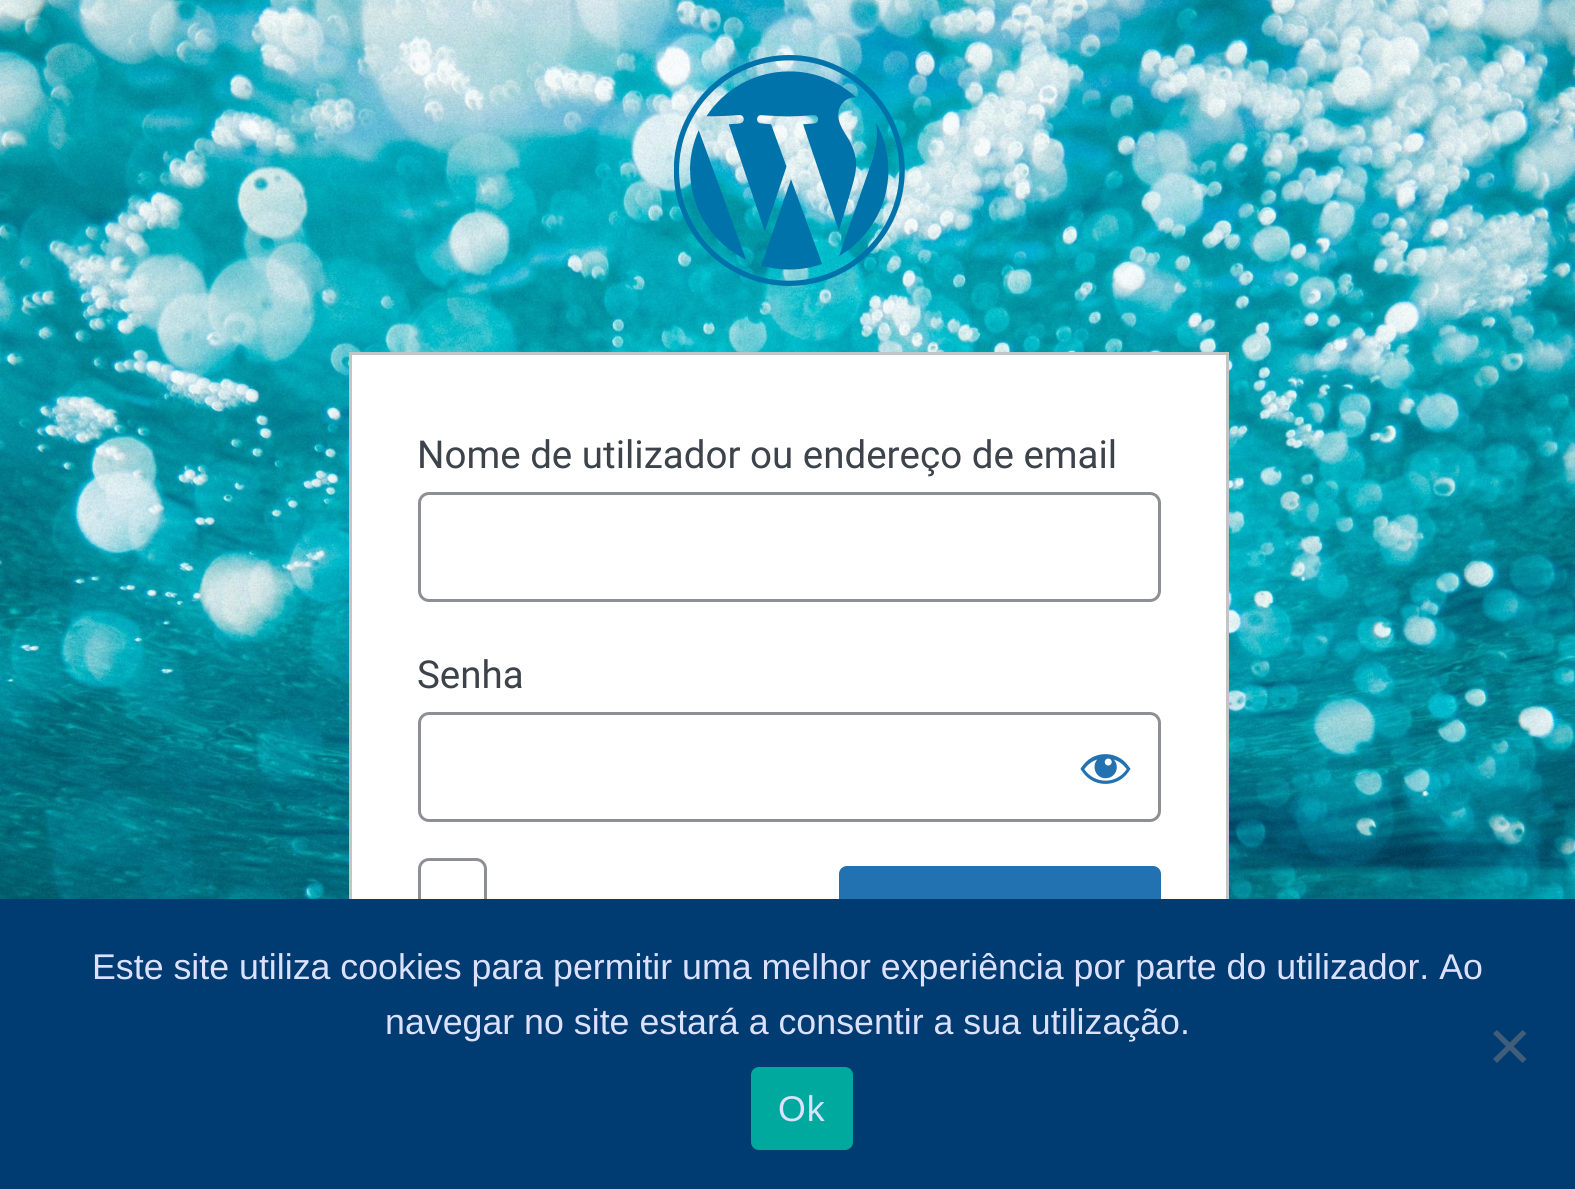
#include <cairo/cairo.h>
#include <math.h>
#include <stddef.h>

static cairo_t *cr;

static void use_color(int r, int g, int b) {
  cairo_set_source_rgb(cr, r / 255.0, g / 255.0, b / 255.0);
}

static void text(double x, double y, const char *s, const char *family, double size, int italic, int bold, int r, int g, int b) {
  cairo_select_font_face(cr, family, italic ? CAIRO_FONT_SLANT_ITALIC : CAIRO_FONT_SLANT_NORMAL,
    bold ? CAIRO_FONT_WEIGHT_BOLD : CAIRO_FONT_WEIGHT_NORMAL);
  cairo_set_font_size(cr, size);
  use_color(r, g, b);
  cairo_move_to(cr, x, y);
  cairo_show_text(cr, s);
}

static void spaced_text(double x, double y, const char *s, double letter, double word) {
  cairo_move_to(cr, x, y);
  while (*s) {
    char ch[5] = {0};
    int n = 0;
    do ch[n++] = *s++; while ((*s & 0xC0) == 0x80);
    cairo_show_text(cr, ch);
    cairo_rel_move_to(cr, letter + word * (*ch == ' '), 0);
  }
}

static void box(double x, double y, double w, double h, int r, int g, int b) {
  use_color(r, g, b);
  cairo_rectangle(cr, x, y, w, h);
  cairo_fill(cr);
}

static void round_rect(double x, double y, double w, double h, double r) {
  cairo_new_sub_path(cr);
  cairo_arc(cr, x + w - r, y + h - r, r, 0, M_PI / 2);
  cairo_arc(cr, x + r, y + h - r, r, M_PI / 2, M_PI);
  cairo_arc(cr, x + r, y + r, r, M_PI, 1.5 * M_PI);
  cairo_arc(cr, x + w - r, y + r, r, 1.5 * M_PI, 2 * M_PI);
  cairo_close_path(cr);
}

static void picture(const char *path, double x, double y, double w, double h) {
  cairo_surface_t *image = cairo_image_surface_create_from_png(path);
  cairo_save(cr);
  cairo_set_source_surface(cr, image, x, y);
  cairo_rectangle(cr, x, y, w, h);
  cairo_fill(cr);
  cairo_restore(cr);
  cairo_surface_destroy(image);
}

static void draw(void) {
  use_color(255, 255, 255);
  cairo_paint(cr);
  picture("img_01.png", 0, 0, 1575, 899);
  picture("img_02.png", 674, 55, 231, 231);
  box(352, 355, 874, 544, 255, 255, 255);
  cairo_rectangle(cr, 350.5, 353.5, 877, 707);
  use_color(195, 196, 199);
  cairo_set_line_width(cr, 3);
  cairo_stroke(cr);
  round_rect(419.5, 493.5, 740, 107, 9.5);
  use_color(140, 143, 148);
  cairo_stroke(cr);
  round_rect(419.5, 713.5, 740, 107, 9.5);
  cairo_stroke(cr);
  picture("img_03.png", 1080, 754, 51, 30);
  round_rect(419.5, 859.5, 66, 66, 9.5);
  cairo_stroke(cr);
  use_color(34, 113, 177);
  round_rect(840.5, 867.5, 319, 107, 6.5);
  cairo_fill_preserve(cr);
  cairo_stroke(cr);
  box(0, 899, 1575, 290, 0, 60, 113);
  use_color(64, 94, 121);
  cairo_new_path(cr);
  cairo_move_to(cr, 1522.5, 1030);
  cairo_line_to(cr, 1526.5, 1033.5);
  cairo_line_to(cr, 1497, 1063);
  cairo_line_to(cr, 1493, 1059);
  cairo_close_path(cr);
  cairo_fill(cr);
  cairo_new_path(cr);
  cairo_move_to(cr, 1493, 1033.5);
  cairo_line_to(cr, 1497, 1030);
  cairo_line_to(cr, 1526.5, 1059);
  cairo_line_to(cr, 1522.5, 1063);
  cairo_close_path(cr);
  cairo_fill(cr);
  use_color(0, 169, 157);
  round_rect(751, 1067, 102, 83, 8);
  cairo_fill(cr);
  text(417, 468, "Nome de utilizador ou endereço de email", "Roboto", 38.5, 0, 0, 60, 67, 74);
  text(417, 688, "Senha", "Roboto", 38.5, 0, 0, 60, 67, 74);
  text(92, 979, "Este site utiliza cookies para permitir uma melhor experiência por parte do utilizador. Ao", "Liberation Sans", 35.75, 0, 0, 219, 225, 255);
  text(385, 1034, "navegar no site estará a consentir a sua utilização.", "Liberation Sans", 35.75, 0, 0, 219, 225, 255);
  spaced_text(778, 1121, "Ok", 1, 0);
}

int main(void) {
  cairo_surface_t *surface = cairo_image_surface_create(CAIRO_FORMAT_RGB24, 1575, 1189);
  cr = cairo_create(surface);
  cairo_font_options_t *options = cairo_font_options_create();
  cairo_font_options_set_hint_metrics(options, CAIRO_HINT_METRICS_OFF);
  cairo_font_options_set_hint_style(options, CAIRO_HINT_STYLE_NONE);
  cairo_set_font_options(cr, options);
  cairo_set_miter_limit(cr, 4);
  draw();
  cairo_surface_write_to_png(surface, "out.png");
  cairo_font_options_destroy(options);
  cairo_destroy(cr);
  cairo_surface_destroy(surface);
  return 0;
}
